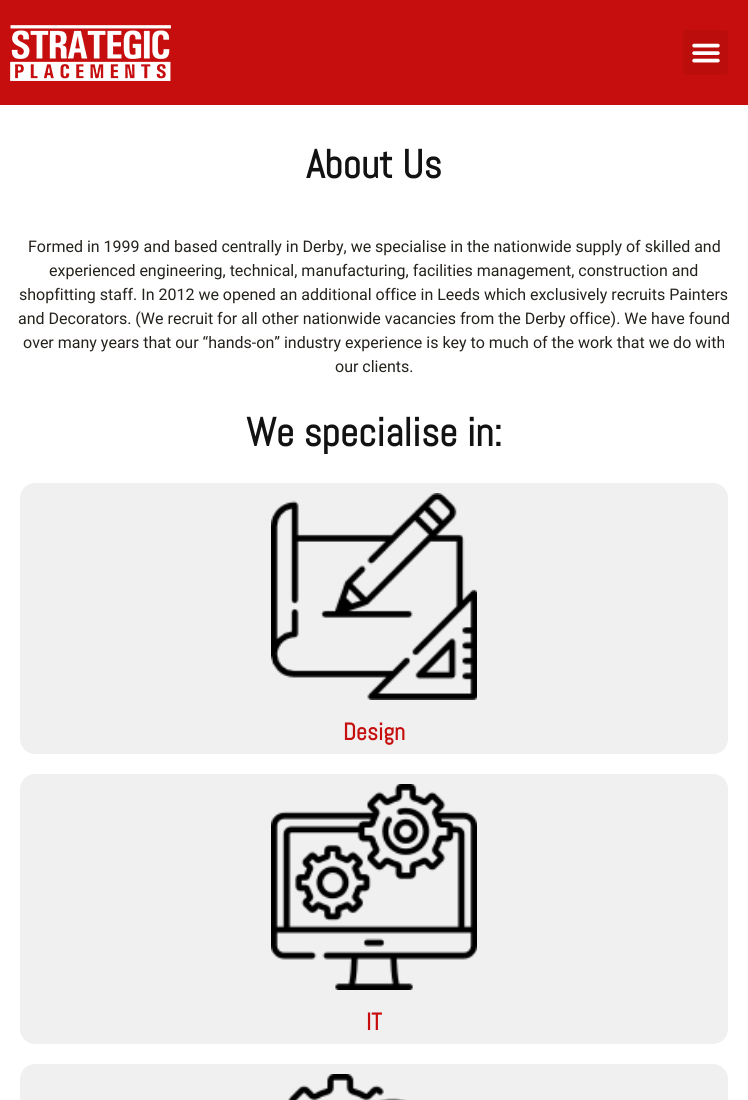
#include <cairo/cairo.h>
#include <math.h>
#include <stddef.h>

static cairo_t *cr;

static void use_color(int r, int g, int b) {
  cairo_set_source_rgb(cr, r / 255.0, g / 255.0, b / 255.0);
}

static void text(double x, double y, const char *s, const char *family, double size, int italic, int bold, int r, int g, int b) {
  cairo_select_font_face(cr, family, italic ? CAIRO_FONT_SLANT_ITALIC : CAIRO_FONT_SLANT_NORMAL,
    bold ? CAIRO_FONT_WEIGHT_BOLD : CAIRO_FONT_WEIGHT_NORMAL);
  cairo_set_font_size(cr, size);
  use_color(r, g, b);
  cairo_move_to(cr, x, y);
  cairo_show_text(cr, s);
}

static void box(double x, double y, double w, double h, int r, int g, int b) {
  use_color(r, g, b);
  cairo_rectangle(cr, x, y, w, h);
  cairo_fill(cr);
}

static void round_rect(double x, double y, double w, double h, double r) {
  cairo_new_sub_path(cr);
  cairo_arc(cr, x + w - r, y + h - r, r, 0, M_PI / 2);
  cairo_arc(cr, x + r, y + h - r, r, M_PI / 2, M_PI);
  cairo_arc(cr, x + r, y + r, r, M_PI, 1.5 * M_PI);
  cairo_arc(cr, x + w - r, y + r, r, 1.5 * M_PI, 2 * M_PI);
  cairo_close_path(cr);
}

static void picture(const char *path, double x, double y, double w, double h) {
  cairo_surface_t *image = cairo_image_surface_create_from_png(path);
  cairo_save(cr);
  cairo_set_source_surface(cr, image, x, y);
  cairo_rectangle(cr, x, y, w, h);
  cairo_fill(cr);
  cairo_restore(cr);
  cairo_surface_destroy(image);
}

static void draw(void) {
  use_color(255, 255, 255);
  cairo_paint(cr);
  box(0, 0, 748, 105, 198, 14, 14);
  picture("img_01.png", 10, 25, 161, 56);
  use_color(188, 13, 13);
  round_rect(683, 30, 45, 45, 3);
  cairo_fill(cr);
  picture("img_02.png", 692, 43, 28, 20);
  use_color(240, 240, 240);
  round_rect(20, 483, 708, 271, 15);
  cairo_fill(cr);
  picture("img_03.png", 271, 493, 206, 207);
  round_rect(20, 774, 708, 270, 15);
  cairo_fill(cr);
  picture("img_04.png", 271, 784, 206, 206);
  round_rect(20, 1064, 708, 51, 15);
  cairo_fill(cr);
  picture("img_05.png", 288, 1074, 119, 26);
  text(306, 178, "About Us", "Abel", 40, 0, 1, 18, 18, 18);
  text(28, 252, "Formed in 1999 and based centrally in Derby, we specialise in the nationwide supply of skilled and", "Roboto", 16, 0, 0, 37, 34, 29);
  text(49, 276, "experienced engineering, technical, manufacturing, facilities management, construction and", "Roboto", 16, 0, 0, 37, 34, 29);
  text(19, 300, "shopfitting staff. In 2012 we opened an additional office in Leeds which exclusively recruits Painters", "Roboto", 16, 0, 0, 37, 34, 29);
  text(18, 324, "and Decorators. (We recruit for all other nationwide vacancies from the Derby office). We have found", "Roboto", 16, 0, 0, 37, 34, 29);
  text(23, 348, "over many years that our “hands-on” industry experience is key to much of the work that we do with", "Roboto", 16, 0, 0, 37, 34, 29);
  text(335, 372, "our clients.", "Roboto", 16, 0, 0, 37, 34, 29);
  text(246, 446, "We specialise in:", "Abel", 40, 0, 1, 18, 18, 18);
  text(343, 740, "Design", "Abel", 24, 0, 1, 198, 14, 14);
  text(366, 1030, "IT", "Abel", 24, 0, 1, 198, 14, 14);
}

int main(void) {
  cairo_surface_t *surface = cairo_image_surface_create(CAIRO_FORMAT_RGB24, 748, 1100);
  cr = cairo_create(surface);
  cairo_font_options_t *options = cairo_font_options_create();
  cairo_font_options_set_hint_metrics(options, CAIRO_HINT_METRICS_OFF);
  cairo_font_options_set_hint_style(options, CAIRO_HINT_STYLE_NONE);
  cairo_set_font_options(cr, options);
  cairo_set_miter_limit(cr, 4);
  draw();
  cairo_surface_write_to_png(surface, "out.png");
  cairo_font_options_destroy(options);
  cairo_destroy(cr);
  cairo_surface_destroy(surface);
  return 0;
}
